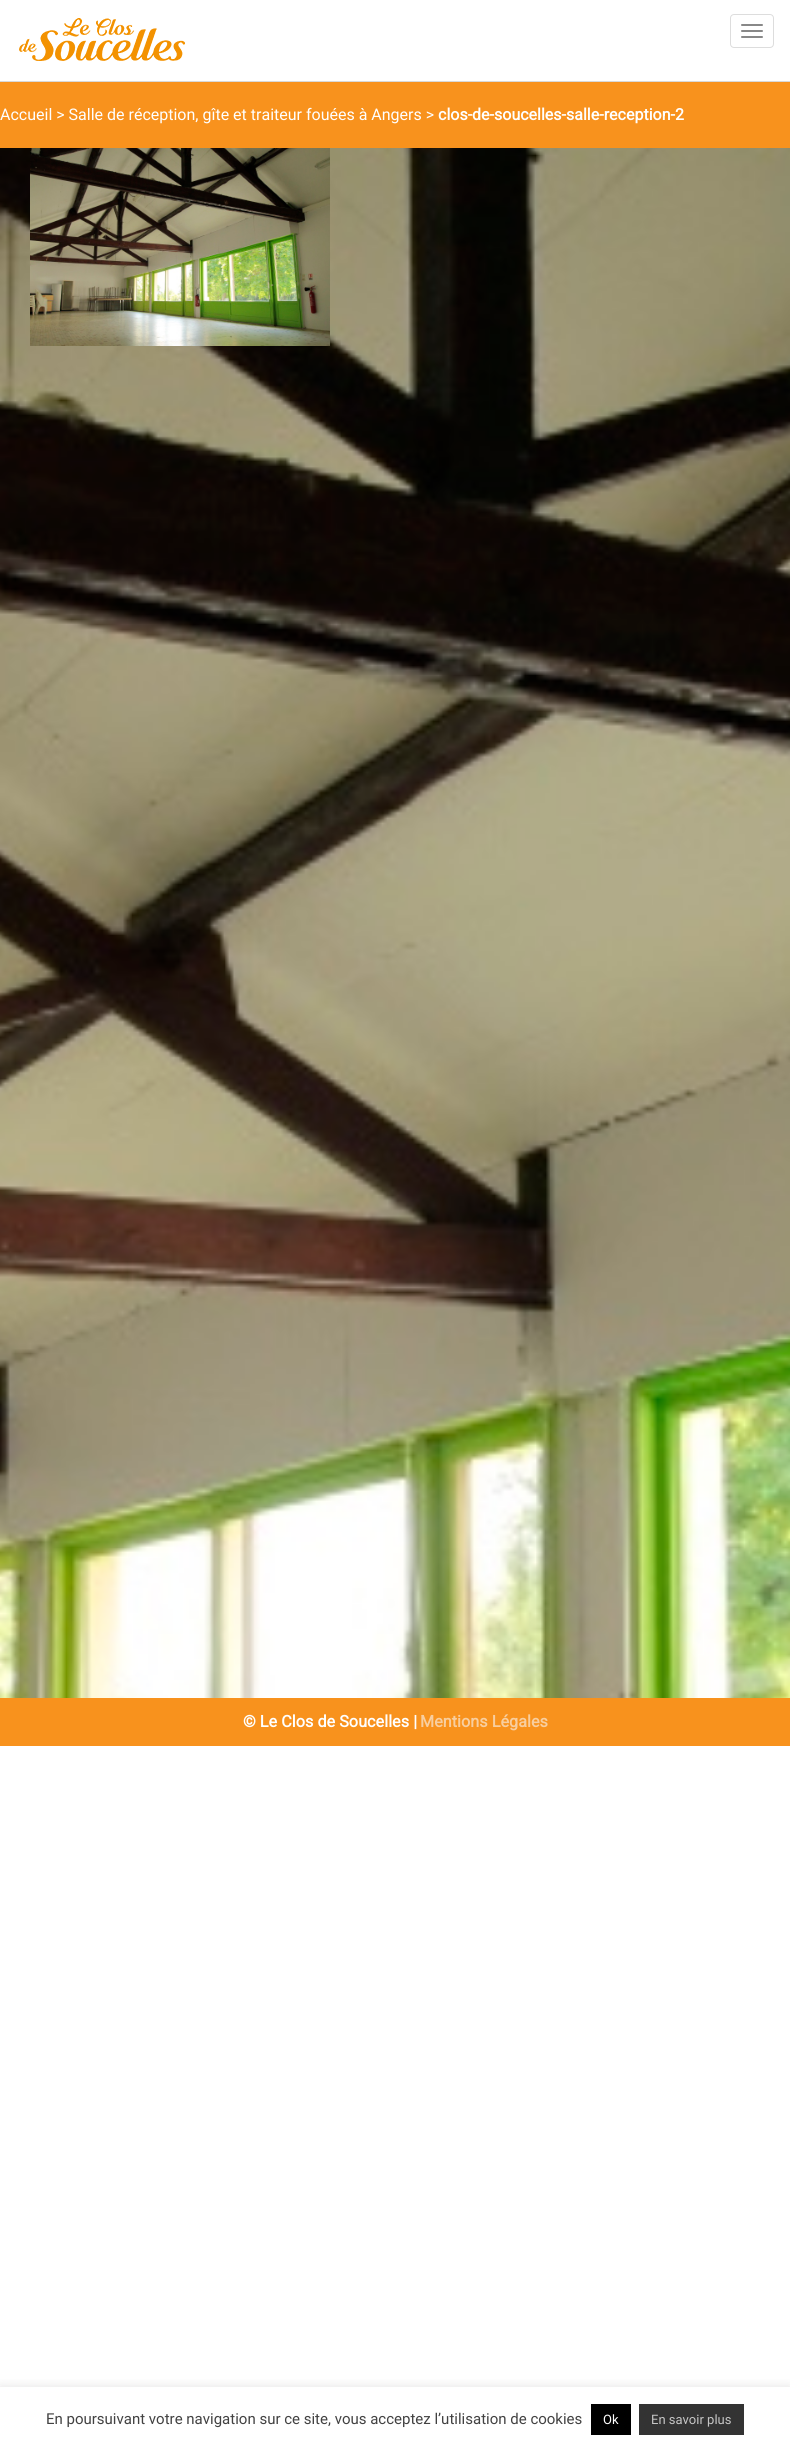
#include <cairo/cairo.h>
#include <math.h>
#include <stddef.h>

static cairo_t *cr;

static void use_color(int r, int g, int b) {
  cairo_set_source_rgb(cr, r / 255.0, g / 255.0, b / 255.0);
}

static void text(double x, double y, const char *s, const char *family, double size, int italic, int bold, int r, int g, int b) {
  cairo_select_font_face(cr, family, italic ? CAIRO_FONT_SLANT_ITALIC : CAIRO_FONT_SLANT_NORMAL,
    bold ? CAIRO_FONT_WEIGHT_BOLD : CAIRO_FONT_WEIGHT_NORMAL);
  cairo_set_font_size(cr, size);
  use_color(r, g, b);
  cairo_move_to(cr, x, y);
  cairo_show_text(cr, s);
}

static void box(double x, double y, double w, double h, int r, int g, int b) {
  use_color(r, g, b);
  cairo_rectangle(cr, x, y, w, h);
  cairo_fill(cr);
}

static void round_rect(double x, double y, double w, double h, double r) {
  cairo_new_sub_path(cr);
  cairo_arc(cr, x + w - r, y + h - r, r, 0, M_PI / 2);
  cairo_arc(cr, x + r, y + h - r, r, M_PI / 2, M_PI);
  cairo_arc(cr, x + r, y + r, r, M_PI, 1.5 * M_PI);
  cairo_arc(cr, x + w - r, y + r, r, 1.5 * M_PI, 2 * M_PI);
  cairo_close_path(cr);
}

static void shadow(double x, double y, double w, double h, double r, double blur, double alpha) {
  cairo_push_group_with_content(cr, CAIRO_CONTENT_ALPHA);
  cairo_set_operator(cr, CAIRO_OPERATOR_SOURCE);
  for (int i = 15; i >= -15 && fmin(w, h) + blur * i / 3 > 0; i -= 2) {
    double e = blur * i / 6;
    cairo_set_source_rgba(cr, 0, 0, 0, alpha * erfc((i - 1) / 8.5) / 2);
    round_rect(x - e, y - e, w + 2 * e, h + 2 * e, fmax(0, fmin(r + e + blur * .6, fmin(w, h) / 2 + e)));
    cairo_fill(cr);
  }
  cairo_pattern_t *soft = cairo_pop_group(cr);
  cairo_mask(cr, soft);
  cairo_pattern_destroy(soft);
}

static void picture(const char *path, double x, double y, double w, double h) {
  cairo_surface_t *image = cairo_image_surface_create_from_png(path);
  cairo_save(cr);
  cairo_set_source_surface(cr, image, x, y);
  cairo_rectangle(cr, x, y, w, h);
  cairo_fill(cr);
  cairo_restore(cr);
  cairo_surface_destroy(image);
}

static void draw(void) {
  use_color(255, 255, 255);
  cairo_paint(cr);
  box(0, 81, 790, 1, 217, 217, 217);
  picture("img_01.png", 19, 18, 166, 43);
  round_rect(730.5, 14.5, 43, 33, 3.5);
  use_color(221, 221, 221);
  cairo_set_line_width(cr, 1);
  cairo_stroke(cr);
  use_color(136, 136, 136);
  round_rect(741, 24, 22, 2, 1);
  cairo_fill(cr);
  round_rect(741, 30, 22, 2, 1);
  cairo_fill(cr);
  round_rect(741, 36, 22, 2, 1);
  cairo_fill(cr);
  box(0, 82, 790, 66, 248, 146, 29);
  picture("img_02.png", 0, 148, 790, 1550);
  picture("img_03.png", 30, 148, 300, 198);
  box(0, 1698, 790, 48, 248, 146, 29);
  cairo_save(cr);
  cairo_rectangle(cr, 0, 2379, 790, 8);
  cairo_clip(cr);
  use_color(172, 171, 171);
  shadow(0, 2386, 790, 60, 0, 5, 0.3);
  cairo_restore(cr);
  box(591, 2404, 40, 31, 0, 0, 0);
  box(639, 2404, 105, 31, 51, 51, 51);
  text(0, 120, "Accueil > Salle de réception, gîte et traiteur fouées à Angers >", "Roboto", 16, 0, 0, 255, 255, 255);
  text(438, 120, "clos-de-soucelles-salle-reception-2", "Roboto", 16, 0, 1, 255, 255, 255);
  text(243, 1727, "© Le Clos de Soucelles |", "Roboto", 16.25, 0, 1, 255, 255, 255);
  text(420, 1727, "Mentions Légales", "Roboto", 16.25, 0, 1, 248, 206, 159);
  text(46, 2424, "En poursuivant votre navigation sur ce site, vous acceptez l’utilisation de cookies", "Roboto", 15, 0, 0, 66, 66, 66);
  text(603, 2424, "Ok", "Roboto", 13, 0, 0, 255, 255, 255);
  text(651, 2424, "En savoir plus", "Roboto", 13, 0, 0, 198, 198, 198);
}

int main(void) {
  cairo_surface_t *surface = cairo_image_surface_create(CAIRO_FORMAT_RGB24, 790, 2447);
  cr = cairo_create(surface);
  cairo_font_options_t *options = cairo_font_options_create();
  cairo_font_options_set_hint_metrics(options, CAIRO_HINT_METRICS_OFF);
  cairo_font_options_set_hint_style(options, CAIRO_HINT_STYLE_NONE);
  cairo_set_font_options(cr, options);
  cairo_set_miter_limit(cr, 4);
  draw();
  cairo_surface_write_to_png(surface, "out.png");
  cairo_font_options_destroy(options);
  cairo_destroy(cr);
  cairo_surface_destroy(surface);
  return 0;
}
